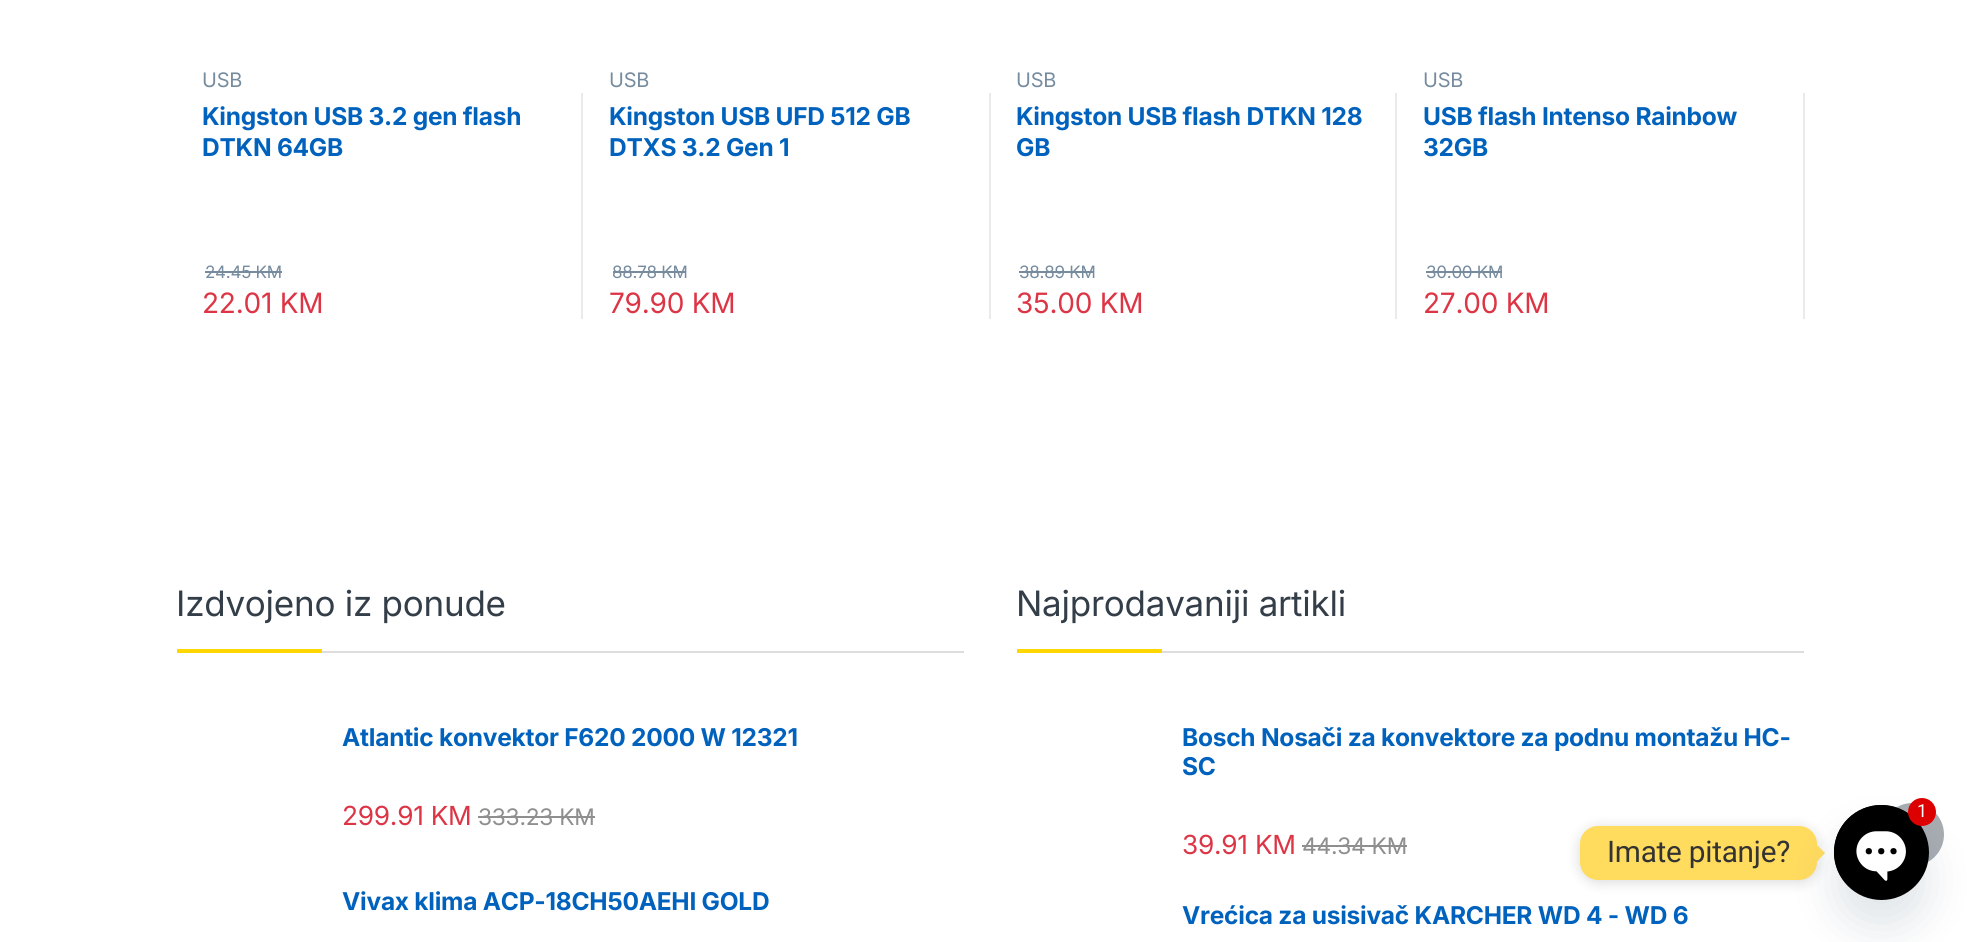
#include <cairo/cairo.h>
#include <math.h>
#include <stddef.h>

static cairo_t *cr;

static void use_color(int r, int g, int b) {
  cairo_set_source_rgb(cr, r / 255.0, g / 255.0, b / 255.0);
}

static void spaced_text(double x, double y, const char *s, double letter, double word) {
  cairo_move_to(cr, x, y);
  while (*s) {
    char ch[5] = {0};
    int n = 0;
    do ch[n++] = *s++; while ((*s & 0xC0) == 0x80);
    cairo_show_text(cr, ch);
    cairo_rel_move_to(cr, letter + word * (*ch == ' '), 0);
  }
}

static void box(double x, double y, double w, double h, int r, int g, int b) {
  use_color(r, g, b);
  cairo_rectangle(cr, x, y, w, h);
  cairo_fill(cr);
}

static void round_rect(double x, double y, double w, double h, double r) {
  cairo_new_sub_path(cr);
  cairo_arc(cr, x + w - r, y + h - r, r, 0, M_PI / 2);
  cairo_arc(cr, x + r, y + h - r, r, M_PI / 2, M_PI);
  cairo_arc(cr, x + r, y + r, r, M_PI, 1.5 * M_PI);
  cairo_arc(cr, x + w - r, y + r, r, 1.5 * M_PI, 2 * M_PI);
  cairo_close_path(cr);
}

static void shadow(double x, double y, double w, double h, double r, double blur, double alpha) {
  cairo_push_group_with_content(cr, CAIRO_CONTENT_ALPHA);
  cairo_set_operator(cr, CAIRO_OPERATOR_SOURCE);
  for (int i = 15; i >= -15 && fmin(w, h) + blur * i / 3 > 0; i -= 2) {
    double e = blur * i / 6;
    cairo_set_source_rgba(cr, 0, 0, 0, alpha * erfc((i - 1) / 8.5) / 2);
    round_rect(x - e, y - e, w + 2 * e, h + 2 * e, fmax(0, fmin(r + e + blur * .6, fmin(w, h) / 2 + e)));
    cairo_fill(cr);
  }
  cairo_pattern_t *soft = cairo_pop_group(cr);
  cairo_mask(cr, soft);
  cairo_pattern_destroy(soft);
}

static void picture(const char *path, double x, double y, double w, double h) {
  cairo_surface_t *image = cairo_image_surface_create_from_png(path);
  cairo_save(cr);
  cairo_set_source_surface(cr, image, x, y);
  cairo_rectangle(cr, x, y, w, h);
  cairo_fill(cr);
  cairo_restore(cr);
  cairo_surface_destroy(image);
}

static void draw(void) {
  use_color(255, 255, 255);
  cairo_paint(cr);
  box(205, 271, 77, 2, 118, 139, 158);
  box(581, 93, 2, 226, 234, 234, 234);
  box(613, 271, 73, 2, 118, 139, 158);
  box(989, 93, 2, 226, 234, 234, 234);
  box(1019, 271, 75, 2, 118, 139, 158);
  box(1395, 93, 2, 226, 234, 234, 234);
  box(1426, 271, 76, 2, 118, 139, 158);
  box(1803, 93, 2, 226, 234, 234, 234);
  box(322, 651, 642, 2, 221, 221, 221);
  box(177, 649, 145, 4, 254, 215, 0);
  box(478, 816, 117, 2, 143, 143, 143);
  box(1162, 651, 642, 2, 221, 221, 221);
  box(1017, 649, 145, 4, 254, 215, 0);
  box(1302, 845, 105, 2, 143, 143, 143);
  use_color(167, 172, 177);
  cairo_arc(cr, 1912.5, 834.5, 30.5, 0, 2 * M_PI);
  cairo_fill_preserve(cr);
  cairo_stroke(cr);
  use_color(0, 0, 0);
  shadow(1580, 828, 237, 54, 18, 7, 0.15);
  use_color(255, 219, 94);
  round_rect(1580, 826, 237, 54, 18);
  cairo_fill(cr);
  cairo_new_path(cr);
  cairo_move_to(cr, 1816.5, 862);
  cairo_line_to(cr, 1816.5, 844.5);
  cairo_line_to(cr, 1825, 853);
  cairo_close_path(cr);
  cairo_fill(cr);
  use_color(73, 104, 126);
  shadow(1834, 833, 95, 95, 47.5, 21, 0.16);
  use_color(0, 0, 0);
  cairo_arc(cr, 1881.5, 852.5, 47.5, 0, 2 * M_PI);
  cairo_fill(cr);
  picture("img_01.png", 1834, 805, 75, 76);
  use_color(221, 0, 0);
  cairo_arc(cr, 1922, 812, 14, 0, 2 * M_PI);
  cairo_fill(cr);
  cairo_select_font_face(cr, "Inter", CAIRO_FONT_SLANT_NORMAL, CAIRO_FONT_WEIGHT_NORMAL);
  cairo_set_font_size(cr, 20);
  use_color(118, 139, 158);
  spaced_text(202, 87, "USB", -0.25, 0);
  cairo_select_font_face(cr, "Inter", CAIRO_FONT_SLANT_NORMAL, CAIRO_FONT_WEIGHT_BOLD);
  cairo_set_font_size(cr, 24.5);
  use_color(0, 98, 189);
  spaced_text(202, 125, "Kingston USB 3.2 gen flash", -0.25, 0);
  spaced_text(202, 156, "DTKN 64GB", -0.25, 0);
  cairo_select_font_face(cr, "Inter", CAIRO_FONT_SLANT_NORMAL, CAIRO_FONT_WEIGHT_NORMAL);
  cairo_set_font_size(cr, 17);
  use_color(118, 139, 158);
  spaced_text(205, 278, "24.45 KM", -0.25, 0);
  cairo_set_font_size(cr, 28);
  use_color(220, 53, 69);
  spaced_text(202, 313, "22.01 KM", -0.25, 0);
  cairo_set_font_size(cr, 20);
  use_color(118, 139, 158);
  spaced_text(609, 87, "USB", -0.25, 0);
  cairo_select_font_face(cr, "Inter", CAIRO_FONT_SLANT_NORMAL, CAIRO_FONT_WEIGHT_BOLD);
  cairo_set_font_size(cr, 24.5);
  use_color(0, 98, 189);
  spaced_text(609, 125, "Kingston USB UFD 512 GB", -0.25, 0);
  spaced_text(609, 156, "DTXS 3.2 Gen 1", -0.25, 0);
  cairo_select_font_face(cr, "Inter", CAIRO_FONT_SLANT_NORMAL, CAIRO_FONT_WEIGHT_NORMAL);
  cairo_set_font_size(cr, 17);
  use_color(118, 139, 158);
  spaced_text(612, 278, "88.78 KM", -0.25, 0);
  cairo_set_font_size(cr, 28);
  use_color(220, 53, 69);
  spaced_text(609, 313, "79.90 KM", -0.25, 0);
  cairo_set_font_size(cr, 20);
  use_color(118, 139, 158);
  spaced_text(1016, 87, "USB", -0.25, 0);
  cairo_select_font_face(cr, "Inter", CAIRO_FONT_SLANT_NORMAL, CAIRO_FONT_WEIGHT_BOLD);
  cairo_set_font_size(cr, 24.5);
  use_color(0, 98, 189);
  spaced_text(1016, 125, "Kingston USB flash DTKN 128", -0.25, 0);
  spaced_text(1016, 156, "GB", -0.25, 0);
  cairo_select_font_face(cr, "Inter", CAIRO_FONT_SLANT_NORMAL, CAIRO_FONT_WEIGHT_NORMAL);
  cairo_set_font_size(cr, 17);
  use_color(118, 139, 158);
  spaced_text(1019, 278, "38.89 KM", -0.25, 0);
  cairo_set_font_size(cr, 28);
  use_color(220, 53, 69);
  spaced_text(1016, 313, "35.00 KM", -0.25, 0);
  cairo_set_font_size(cr, 20);
  use_color(118, 139, 158);
  spaced_text(1423, 87, "USB", -0.25, 0);
  cairo_select_font_face(cr, "Inter", CAIRO_FONT_SLANT_NORMAL, CAIRO_FONT_WEIGHT_BOLD);
  cairo_set_font_size(cr, 24.5);
  use_color(0, 98, 189);
  spaced_text(1423, 125, "USB flash Intenso Rainbow", -0.25, 0);
  spaced_text(1423, 156, "32GB", -0.25, 0);
  cairo_select_font_face(cr, "Inter", CAIRO_FONT_SLANT_NORMAL, CAIRO_FONT_WEIGHT_NORMAL);
  cairo_set_font_size(cr, 17);
  use_color(118, 139, 158);
  spaced_text(1426, 278, "30.00 KM", -0.25, 0);
  cairo_set_font_size(cr, 28);
  use_color(220, 53, 69);
  spaced_text(1423, 313, "27.00 KM", -0.25, 0);
  cairo_set_font_size(cr, 35);
  use_color(51, 62, 72);
  spaced_text(176, 616, "Izdvojeno iz ponude", -0.25, 0);
  cairo_select_font_face(cr, "Inter", CAIRO_FONT_SLANT_NORMAL, CAIRO_FONT_WEIGHT_BOLD);
  cairo_set_font_size(cr, 24.5);
  use_color(0, 98, 189);
  spaced_text(342, 746, "Atlantic konvektor F620 2000 W 12321", -0.25, 0);
  cairo_select_font_face(cr, "Inter", CAIRO_FONT_SLANT_NORMAL, CAIRO_FONT_WEIGHT_NORMAL);
  cairo_set_font_size(cr, 26.25);
  use_color(220, 53, 69);
  spaced_text(342, 825, "299.91 KM", -0.25, 0);
  cairo_set_font_size(cr, 22.75);
  use_color(143, 143, 143);
  spaced_text(478, 825, "333.23 KM", -0.25, 0);
  cairo_select_font_face(cr, "Inter", CAIRO_FONT_SLANT_NORMAL, CAIRO_FONT_WEIGHT_BOLD);
  cairo_set_font_size(cr, 24.5);
  use_color(0, 98, 189);
  spaced_text(342, 910, "Vivax klima ACP-18CH50AEHI GOLD", -0.25, 0);
  cairo_select_font_face(cr, "Inter", CAIRO_FONT_SLANT_NORMAL, CAIRO_FONT_WEIGHT_NORMAL);
  cairo_set_font_size(cr, 35);
  use_color(51, 62, 72);
  spaced_text(1016, 616, "Najprodavaniji artikli", -0.25, 0);
  cairo_select_font_face(cr, "Inter", CAIRO_FONT_SLANT_NORMAL, CAIRO_FONT_WEIGHT_BOLD);
  cairo_set_font_size(cr, 24.5);
  use_color(0, 98, 189);
  spaced_text(1182, 746, "Bosch Nosači za konvektore za podnu montažu HC-", -0.25, 0);
  spaced_text(1182, 775, "SC", -0.25, 0);
  cairo_select_font_face(cr, "Inter", CAIRO_FONT_SLANT_NORMAL, CAIRO_FONT_WEIGHT_NORMAL);
  cairo_set_font_size(cr, 26.25);
  use_color(220, 53, 69);
  spaced_text(1182, 854, "39.91 KM", -0.25, 0);
  cairo_set_font_size(cr, 22.75);
  use_color(143, 143, 143);
  spaced_text(1302, 854, "44.34 KM", -0.25, 0);
  cairo_select_font_face(cr, "Inter", CAIRO_FONT_SLANT_NORMAL, CAIRO_FONT_WEIGHT_BOLD);
  cairo_set_font_size(cr, 24.5);
  use_color(0, 98, 189);
  spaced_text(1182, 924, "Vrećica za usisivač KARCHER WD 4 - WD 6", -0.25, 0);
  cairo_select_font_face(cr, "Roboto", CAIRO_FONT_SLANT_NORMAL, CAIRO_FONT_WEIGHT_NORMAL);
  cairo_set_font_size(cr, 18);
  use_color(255, 255, 255);
  spaced_text(1917, 817, "1", -0.25, 0);
  cairo_set_font_size(cr, 29.75);
  use_color(51, 51, 51);
  spaced_text(1607, 862, "Imate pitanje?", -0.25, 0);
}

int main(void) {
  cairo_surface_t *surface = cairo_image_surface_create(CAIRO_FORMAT_RGB24, 1979, 942);
  cr = cairo_create(surface);
  cairo_font_options_t *options = cairo_font_options_create();
  cairo_font_options_set_hint_metrics(options, CAIRO_HINT_METRICS_OFF);
  cairo_font_options_set_hint_style(options, CAIRO_HINT_STYLE_NONE);
  cairo_set_font_options(cr, options);
  cairo_set_miter_limit(cr, 4);
  draw();
  cairo_surface_write_to_png(surface, "out.png");
  cairo_font_options_destroy(options);
  cairo_destroy(cr);
  cairo_surface_destroy(surface);
  return 0;
}
